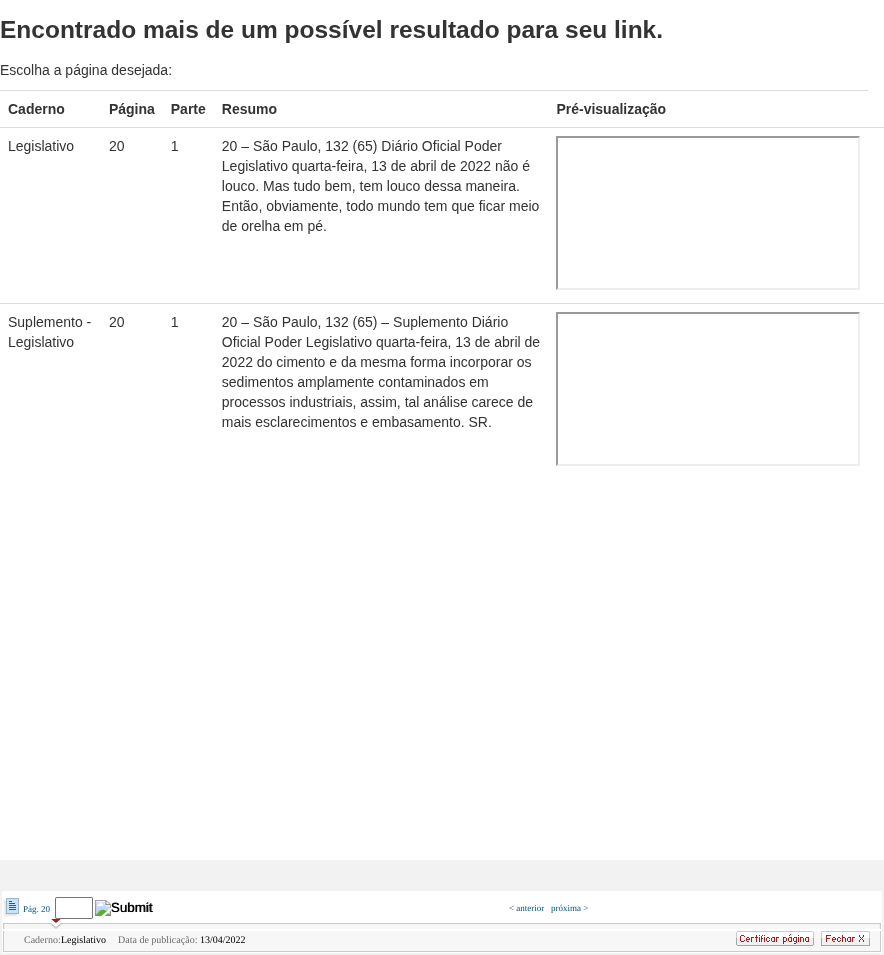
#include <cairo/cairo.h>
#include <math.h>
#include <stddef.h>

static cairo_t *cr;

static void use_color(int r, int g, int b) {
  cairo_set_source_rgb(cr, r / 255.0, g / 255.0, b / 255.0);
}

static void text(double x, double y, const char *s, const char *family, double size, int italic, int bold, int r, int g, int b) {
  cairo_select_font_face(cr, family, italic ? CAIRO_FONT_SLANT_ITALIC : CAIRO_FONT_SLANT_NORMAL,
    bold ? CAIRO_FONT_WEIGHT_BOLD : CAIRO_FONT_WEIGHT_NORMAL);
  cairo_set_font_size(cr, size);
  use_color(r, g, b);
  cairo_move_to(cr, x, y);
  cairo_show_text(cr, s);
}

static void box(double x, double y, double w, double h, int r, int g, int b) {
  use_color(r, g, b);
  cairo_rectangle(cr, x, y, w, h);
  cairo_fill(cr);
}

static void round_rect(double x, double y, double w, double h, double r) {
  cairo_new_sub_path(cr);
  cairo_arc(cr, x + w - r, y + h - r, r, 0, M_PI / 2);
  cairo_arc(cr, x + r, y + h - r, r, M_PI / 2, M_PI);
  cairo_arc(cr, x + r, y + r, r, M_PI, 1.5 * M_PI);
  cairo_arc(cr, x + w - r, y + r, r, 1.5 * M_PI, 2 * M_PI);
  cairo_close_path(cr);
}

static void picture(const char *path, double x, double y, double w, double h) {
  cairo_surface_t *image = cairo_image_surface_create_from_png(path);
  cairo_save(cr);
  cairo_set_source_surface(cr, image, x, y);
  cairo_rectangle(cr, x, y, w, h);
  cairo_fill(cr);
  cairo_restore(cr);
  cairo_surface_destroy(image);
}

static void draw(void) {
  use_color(242, 242, 242);
  cairo_paint(cr);
  picture("img_01.png", 0, 0, 884, 860);
  box(2, 891, 880, 62, 255, 255, 255);
  picture("img_02.png", 3, 898, 16, 19);
  round_rect(55.5, 897.5, 37, 21, 1.5);
  use_color(118, 118, 118);
  cairo_set_line_width(cr, 1);
  cairo_stroke(cr);
  picture("img_03.png", 95, 900, 57, 16);
  picture("img_04.png", 3, 919, 878, 10);
  box(4, 931, 876, 20, 247, 247, 247);
  box(880, 931, 1, 21, 203, 203, 203);
  box(3, 951, 878, 1, 203, 203, 203);
  box(3, 931, 1, 21, 203, 203, 203);
  picture("img_05.png", 736, 931, 78, 15);
  picture("img_06.png", 821, 931, 49, 15);
  text(23, 912, "Pág. 20", "Liberation Serif", 9, 0, 0, 0, 82, 125);
  text(111, 912, "Submit", "Liberation Sans", 13.5, 0, 0, 0, 0, 0);
  text(509, 911, "< anterior", "Liberation Serif", 9, 0, 0, 0, 82, 125);
  text(551, 911, "próxima >", "Liberation Serif", 9, 0, 0, 0, 82, 125);
  text(24, 943, "Caderno:", "Liberation Serif", 10, 0, 0, 102, 102, 102);
  text(61, 943, "Legislativo", "Liberation Serif", 10, 0, 0, 0, 0, 0);
  text(118, 943, "Data de publicação:", "Liberation Serif", 10, 0, 0, 102, 102, 102);
  text(200, 943, "13/04/2022", "Liberation Serif", 10, 0, 0, 0, 0, 0);
}

int main(void) {
  cairo_surface_t *surface = cairo_image_surface_create(CAIRO_FORMAT_RGB24, 884, 955);
  cr = cairo_create(surface);
  cairo_font_options_t *options = cairo_font_options_create();
  cairo_font_options_set_hint_metrics(options, CAIRO_HINT_METRICS_OFF);
  cairo_font_options_set_hint_style(options, CAIRO_HINT_STYLE_NONE);
  cairo_set_font_options(cr, options);
  cairo_set_miter_limit(cr, 4);
  draw();
  cairo_surface_write_to_png(surface, "out.png");
  cairo_font_options_destroy(options);
  cairo_destroy(cr);
  cairo_surface_destroy(surface);
  return 0;
}
